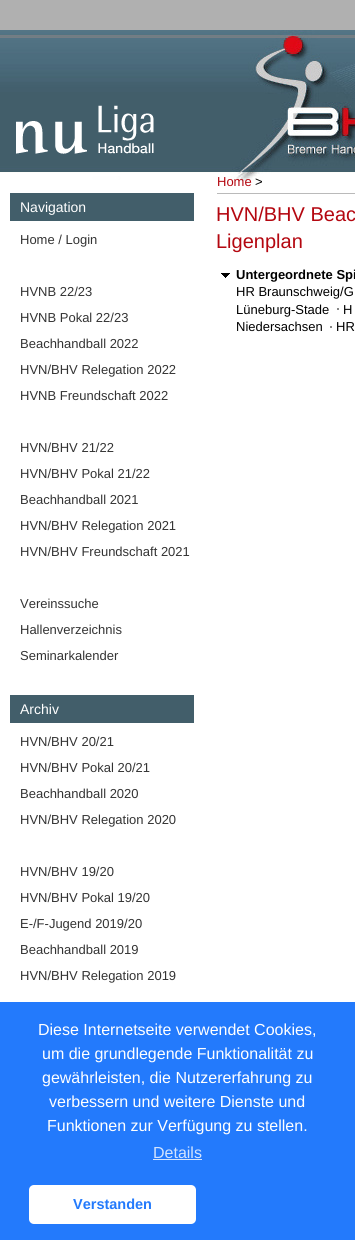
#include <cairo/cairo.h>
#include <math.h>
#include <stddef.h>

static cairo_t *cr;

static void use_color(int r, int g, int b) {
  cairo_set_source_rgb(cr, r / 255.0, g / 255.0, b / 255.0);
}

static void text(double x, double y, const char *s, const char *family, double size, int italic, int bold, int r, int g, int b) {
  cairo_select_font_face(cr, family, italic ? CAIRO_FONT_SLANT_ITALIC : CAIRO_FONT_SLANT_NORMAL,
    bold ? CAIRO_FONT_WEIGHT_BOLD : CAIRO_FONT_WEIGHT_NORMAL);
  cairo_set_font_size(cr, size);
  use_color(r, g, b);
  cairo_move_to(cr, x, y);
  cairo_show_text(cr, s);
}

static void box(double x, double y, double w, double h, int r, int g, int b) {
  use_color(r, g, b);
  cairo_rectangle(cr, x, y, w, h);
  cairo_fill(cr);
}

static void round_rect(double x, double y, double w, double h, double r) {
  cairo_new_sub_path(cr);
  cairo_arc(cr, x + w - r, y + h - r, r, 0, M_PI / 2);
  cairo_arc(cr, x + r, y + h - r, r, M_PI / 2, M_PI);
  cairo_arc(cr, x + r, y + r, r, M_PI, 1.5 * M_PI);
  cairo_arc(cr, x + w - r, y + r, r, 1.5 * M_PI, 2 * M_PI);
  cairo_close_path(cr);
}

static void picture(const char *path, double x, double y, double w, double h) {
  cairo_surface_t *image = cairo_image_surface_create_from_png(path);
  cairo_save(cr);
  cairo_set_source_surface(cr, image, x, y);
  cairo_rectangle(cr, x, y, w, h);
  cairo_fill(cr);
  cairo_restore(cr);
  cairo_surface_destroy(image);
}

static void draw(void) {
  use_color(176, 176, 176);
  cairo_paint(cr);
  box(0, 181, 355, 821, 255, 255, 255);
  picture("img_01.png", 0, 30, 355, 151);
  picture("img_02.png", 16, 105, 138, 49);
  box(217, 193, 138, 1, 186, 186, 186);
  box(10, 193, 184, 28, 66, 94, 106);
  box(10, 695, 184, 28, 66, 94, 106);
  picture("img_03.png", 221, 273, 9, 5);
  box(337, 308, 2, 2, 136, 136, 136);
  box(330, 326, 2, 2, 136, 136, 136);
  box(0, 1002, 355, 238, 35, 122, 252);
  box(153, 1159, 49, 1, 211, 228, 254);
  use_color(255, 255, 255);
  round_rect(29, 1185, 167, 39, 5);
  cairo_fill(cr);
  text(217, 186, "Home", "Liberation Sans", 13, 0, 0, 180, 7, 16);
  text(255, 186, ">", "Liberation Sans", 13, 0, 0, 0, 0, 0);
  text(20, 212, "Navigation", "Liberation Sans", 14, 0, 0, 255, 255, 255);
  text(20, 244, "Home / Login", "Liberation Sans", 13, 0, 0, 51, 51, 51);
  text(20, 296, "HVNB 22/23", "Liberation Sans", 13, 0, 0, 51, 51, 51);
  text(20, 322, "HVNB Pokal 22/23", "Liberation Sans", 13, 0, 0, 51, 51, 51);
  text(20, 348, "Beachhandball 2022", "Liberation Sans", 13, 0, 0, 51, 51, 51);
  text(20, 374, "HVN/BHV Relegation 2022", "Liberation Sans", 13, 0, 0, 51, 51, 51);
  text(20, 400, "HVNB Freundschaft 2022", "Liberation Sans", 13, 0, 0, 51, 51, 51);
  text(20, 452, "HVN/BHV 21/22", "Liberation Sans", 13, 0, 0, 51, 51, 51);
  text(20, 478, "HVN/BHV Pokal 21/22", "Liberation Sans", 13, 0, 0, 51, 51, 51);
  text(20, 504, "Beachhandball 2021", "Liberation Sans", 13, 0, 0, 51, 51, 51);
  text(20, 530, "HVN/BHV Relegation 2021", "Liberation Sans", 13, 0, 0, 51, 51, 51);
  text(20, 556, "HVN/BHV Freundschaft 2021", "Liberation Sans", 13, 0, 0, 51, 51, 51);
  text(20, 608, "Vereinssuche", "Liberation Sans", 13, 0, 0, 51, 51, 51);
  text(20, 634, "Hallenverzeichnis", "Liberation Sans", 13, 0, 0, 51, 51, 51);
  text(20, 660, "Seminarkalender", "Liberation Sans", 13, 0, 0, 51, 51, 51);
  text(20, 714, "Archiv", "Liberation Sans", 14, 0, 0, 255, 255, 255);
  text(20, 746, "HVN/BHV 20/21", "Liberation Sans", 13, 0, 0, 51, 51, 51);
  text(20, 772, "HVN/BHV Pokal 20/21", "Liberation Sans", 13, 0, 0, 51, 51, 51);
  text(20, 798, "Beachhandball 2020", "Liberation Sans", 13, 0, 0, 51, 51, 51);
  text(20, 824, "HVN/BHV Relegation 2020", "Liberation Sans", 13, 0, 0, 51, 51, 51);
  text(20, 876, "HVN/BHV 19/20", "Liberation Sans", 13, 0, 0, 51, 51, 51);
  text(20, 902, "HVN/BHV Pokal 19/20", "Liberation Sans", 13, 0, 0, 51, 51, 51);
  text(20, 928, "E-/F-Jugend 2019/20", "Liberation Sans", 13, 0, 0, 51, 51, 51);
  text(20, 954, "Beachhandball 2019", "Liberation Sans", 13, 0, 0, 51, 51, 51);
  text(20, 980, "HVN/BHV Relegation 2019", "Liberation Sans", 13, 0, 0, 51, 51, 51);
  text(216, 221, "HVN/BHV Beac", "Liberation Sans", 20, 0, 0, 180, 7, 16);
  text(216, 248, "Ligenplan", "Liberation Sans", 20, 0, 0, 180, 7, 16);
  text(236, 279, "Untergeordnete Spi", "Liberation Sans", 13, 0, 1, 0, 0, 0);
  text(236, 296, "HR Braunschweig/G", "Liberation Sans", 13, 0, 0, 0, 0, 0);
  text(236, 314, "Lüneburg-Stade", "Liberation Sans", 13, 0, 0, 0, 0, 0);
  text(343, 314, "H", "Liberation Sans", 13, 0, 0, 0, 0, 0);
  text(236, 331, "Niedersachsen", "Liberation Sans", 13, 0, 0, 0, 0, 0);
  text(336, 331, "HR", "Liberation Sans", 13, 0, 0, 0, 0, 0);
  text(38, 1035, "Diese Internetseite verwendet Cookies,", "Liberation Sans", 16, 0, 0, 255, 255, 255);
  text(42, 1059, "um die grundlegende Funktionalität zu", "Liberation Sans", 16, 0, 0, 255, 255, 255);
  text(42, 1083, "gewährleisten, die Nutzererfahrung zu", "Liberation Sans", 16, 0, 0, 255, 255, 255);
  text(49, 1107, "verbessern und weitere Dienste und", "Liberation Sans", 16, 0, 0, 255, 255, 255);
  text(47, 1131, "Funktionen zur Verfügung zu stellen.", "Liberation Sans", 16, 0, 0, 255, 255, 255);
  text(153, 1158, "Details", "Liberation Sans", 16, 0, 0, 211, 228, 254);
  text(73, 1209, "Verstanden", "Liberation Sans", 14.5, 0, 1, 35, 122, 252);
}

int main(void) {
  cairo_surface_t *surface = cairo_image_surface_create(CAIRO_FORMAT_RGB24, 355, 1240);
  cr = cairo_create(surface);
  cairo_font_options_t *options = cairo_font_options_create();
  cairo_font_options_set_hint_metrics(options, CAIRO_HINT_METRICS_OFF);
  cairo_font_options_set_hint_style(options, CAIRO_HINT_STYLE_NONE);
  cairo_set_font_options(cr, options);
  cairo_set_miter_limit(cr, 4);
  draw();
  cairo_surface_write_to_png(surface, "out.png");
  cairo_font_options_destroy(options);
  cairo_destroy(cr);
  cairo_surface_destroy(surface);
  return 0;
}
